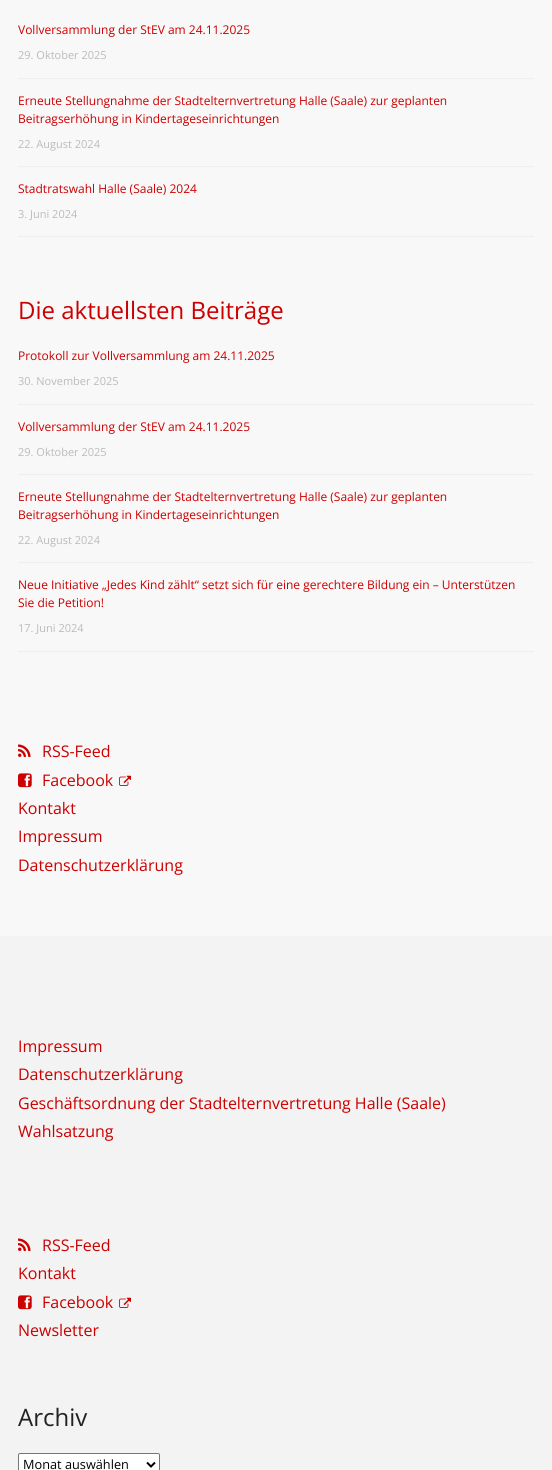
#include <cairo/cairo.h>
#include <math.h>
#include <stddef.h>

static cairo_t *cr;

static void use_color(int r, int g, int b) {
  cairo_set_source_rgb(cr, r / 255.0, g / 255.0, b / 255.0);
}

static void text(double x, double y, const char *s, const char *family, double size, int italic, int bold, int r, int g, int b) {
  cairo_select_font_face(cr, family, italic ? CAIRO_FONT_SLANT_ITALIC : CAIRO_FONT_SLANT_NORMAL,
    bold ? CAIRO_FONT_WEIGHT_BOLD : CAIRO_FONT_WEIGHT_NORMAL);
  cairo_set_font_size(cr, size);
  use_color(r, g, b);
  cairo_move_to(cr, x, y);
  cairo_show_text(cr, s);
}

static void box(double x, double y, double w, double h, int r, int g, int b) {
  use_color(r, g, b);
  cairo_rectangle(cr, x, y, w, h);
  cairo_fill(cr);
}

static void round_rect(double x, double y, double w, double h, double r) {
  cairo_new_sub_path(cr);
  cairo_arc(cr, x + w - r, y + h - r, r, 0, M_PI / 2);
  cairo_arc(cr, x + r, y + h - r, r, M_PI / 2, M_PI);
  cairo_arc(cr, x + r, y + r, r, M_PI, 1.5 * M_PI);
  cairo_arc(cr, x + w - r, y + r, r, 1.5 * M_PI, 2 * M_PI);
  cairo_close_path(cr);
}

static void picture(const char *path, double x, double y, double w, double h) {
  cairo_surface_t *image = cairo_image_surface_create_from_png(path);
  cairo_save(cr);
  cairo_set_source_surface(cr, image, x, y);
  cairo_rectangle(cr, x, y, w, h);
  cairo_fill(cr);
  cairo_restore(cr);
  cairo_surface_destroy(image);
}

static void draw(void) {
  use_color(248, 248, 249);
  cairo_paint(cr);
  box(18, 78, 516, 1, 238, 238, 238);
  box(18, 166, 516, 1, 238, 238, 238);
  box(18, 236, 516, 1, 238, 238, 238);
  box(18, 404, 516, 1, 238, 238, 238);
  box(18, 474, 516, 1, 238, 238, 238);
  box(18, 562, 516, 1, 238, 238, 238);
  box(18, 651, 516, 1, 238, 238, 238);
  picture("img_01.png", 18, 744, 13, 13);
  picture("img_02.png", 18, 773, 14, 15);
  picture("img_03.png", 119, 775, 12, 11);
  box(0, 936, 552, 534, 243, 243, 243);
  picture("img_04.png", 18, 1238, 13, 13);
  picture("img_05.png", 18, 1295, 14, 15);
  picture("img_06.png", 119, 1297, 12, 11);
  use_color(255, 255, 255);
  round_rect(18.5, 1453.5, 141, 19, 1.5);
  cairo_fill_preserve(cr);
  use_color(118, 118, 118);
  cairo_set_line_width(cr, 1);
  cairo_stroke(cr);
  cairo_new_path(cr);
  cairo_move_to(cr, 147, 1462.5);
  cairo_line_to(cr, 151, 1466.5);
  cairo_line_to(cr, 155, 1462.5);
  use_color(0, 0, 0);
  cairo_set_line_width(cr, 2);
  cairo_stroke(cr);
  text(18, 34, "Vollversammlung der StEV am 24.11.2025", "Open Sans", 12, 0, 0, 204, 0, 0);
  text(18, 59, "29. Oktober 2025", "Open Sans", 11, 0, 0, 187, 187, 187);
  text(18, 105, "Erneute Stellungnahme der Stadtelternvertretung Halle (Saale) zur geplanten", "Open Sans", 12, 0, 0, 204, 0, 0);
  text(18, 123, "Beitragserhöhung in Kindertageseinrichtungen", "Open Sans", 12, 0, 0, 204, 0, 0);
  text(18, 148, "22. August 2024", "Open Sans", 11, 0, 0, 187, 187, 187);
  text(18, 193, "Stadtratswahl Halle (Saale) 2024", "Open Sans", 12, 0, 0, 204, 0, 0);
  text(18, 218, "3. Juni 2024", "Open Sans", 11, 0, 0, 187, 187, 187);
  text(18, 319, "Die aktuellsten Beiträge", "Open Sans", 24, 0, 0, 204, 0, 0);
  text(18, 360, "Protokoll zur Vollversammlung am 24.11.2025", "Open Sans", 12, 0, 0, 204, 0, 0);
  text(18, 385, "30. November 2025", "Open Sans", 11, 0, 0, 187, 187, 187);
  text(18, 431, "Vollversammlung der StEV am 24.11.2025", "Open Sans", 12, 0, 0, 204, 0, 0);
  text(18, 456, "29. Oktober 2025", "Open Sans", 11, 0, 0, 187, 187, 187);
  text(18, 501, "Erneute Stellungnahme der Stadtelternvertretung Halle (Saale) zur geplanten", "Open Sans", 12, 0, 0, 204, 0, 0);
  text(18, 519, "Beitragserhöhung in Kindertageseinrichtungen", "Open Sans", 12, 0, 0, 204, 0, 0);
  text(18, 544, "22. August 2024", "Open Sans", 11, 0, 0, 187, 187, 187);
  text(18, 589, "Neue Initiative „Jedes Kind zählt“ setzt sich für eine gerechtere Bildung ein – Unterstützen", "Open Sans", 12, 0, 0, 204, 0, 0);
  text(18, 607, "Sie die Petition!", "Open Sans", 12, 0, 0, 204, 0, 0);
  text(18, 632, "17. Juni 2024", "Open Sans", 11, 0, 0, 187, 187, 187);
  text(42, 757, "RSS-Feed", "Open Sans", 16, 0, 0, 204, 0, 0);
  text(42, 786, "Facebook", "Open Sans", 16, 0, 0, 204, 0, 0);
  text(18, 814, "Kontakt", "Open Sans", 16, 0, 0, 204, 0, 0);
  text(18, 842, "Impressum", "Open Sans", 16, 0, 0, 204, 0, 0);
  text(18, 871, "Datenschutzerklärung", "Open Sans", 16, 0, 0, 204, 0, 0);
  text(18, 1052, "Impressum", "Open Sans", 16, 0, 0, 204, 0, 0);
  text(18, 1080, "Datenschutzerklärung", "Open Sans", 16, 0, 0, 204, 0, 0);
  text(18, 1109, "Geschäftsordnung der Stadtelternvertretung Halle (Saale)", "Open Sans", 16, 0, 0, 204, 0, 0);
  text(18, 1137, "Wahlsatzung", "Open Sans", 16, 0, 0, 204, 0, 0);
  text(42, 1251, "RSS-Feed", "Open Sans", 16, 0, 0, 204, 0, 0);
  text(18, 1279, "Kontakt", "Open Sans", 16, 0, 0, 204, 0, 0);
  text(42, 1308, "Facebook", "Open Sans", 16, 0, 0, 204, 0, 0);
  text(18, 1336, "Newsletter", "Open Sans", 16, 0, 0, 204, 0, 0);
  text(18, 1426, "Archiv", "Open Sans", 24, 0, 0, 34, 34, 34);
  text(23, 1469, "Monat auswählen", "Open Sans", 12.75, 0, 0, 0, 0, 0);
}

int main(void) {
  cairo_surface_t *surface = cairo_image_surface_create(CAIRO_FORMAT_RGB24, 552, 1470);
  cr = cairo_create(surface);
  cairo_font_options_t *options = cairo_font_options_create();
  cairo_font_options_set_hint_metrics(options, CAIRO_HINT_METRICS_OFF);
  cairo_font_options_set_hint_style(options, CAIRO_HINT_STYLE_NONE);
  cairo_set_font_options(cr, options);
  cairo_set_miter_limit(cr, 4);
  draw();
  cairo_surface_write_to_png(surface, "out.png");
  cairo_font_options_destroy(options);
  cairo_destroy(cr);
  cairo_surface_destroy(surface);
  return 0;
}
